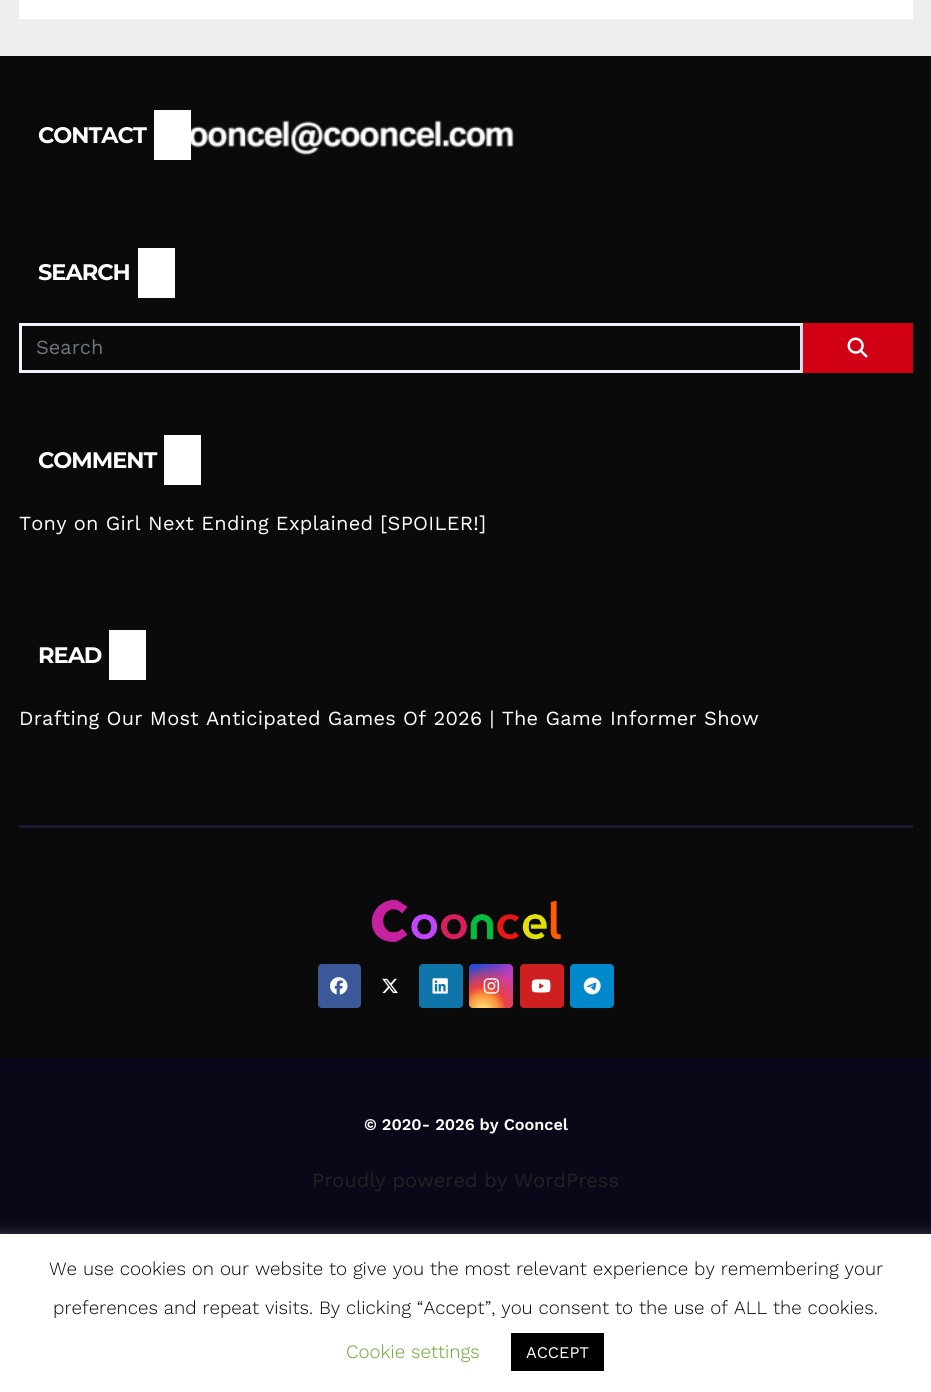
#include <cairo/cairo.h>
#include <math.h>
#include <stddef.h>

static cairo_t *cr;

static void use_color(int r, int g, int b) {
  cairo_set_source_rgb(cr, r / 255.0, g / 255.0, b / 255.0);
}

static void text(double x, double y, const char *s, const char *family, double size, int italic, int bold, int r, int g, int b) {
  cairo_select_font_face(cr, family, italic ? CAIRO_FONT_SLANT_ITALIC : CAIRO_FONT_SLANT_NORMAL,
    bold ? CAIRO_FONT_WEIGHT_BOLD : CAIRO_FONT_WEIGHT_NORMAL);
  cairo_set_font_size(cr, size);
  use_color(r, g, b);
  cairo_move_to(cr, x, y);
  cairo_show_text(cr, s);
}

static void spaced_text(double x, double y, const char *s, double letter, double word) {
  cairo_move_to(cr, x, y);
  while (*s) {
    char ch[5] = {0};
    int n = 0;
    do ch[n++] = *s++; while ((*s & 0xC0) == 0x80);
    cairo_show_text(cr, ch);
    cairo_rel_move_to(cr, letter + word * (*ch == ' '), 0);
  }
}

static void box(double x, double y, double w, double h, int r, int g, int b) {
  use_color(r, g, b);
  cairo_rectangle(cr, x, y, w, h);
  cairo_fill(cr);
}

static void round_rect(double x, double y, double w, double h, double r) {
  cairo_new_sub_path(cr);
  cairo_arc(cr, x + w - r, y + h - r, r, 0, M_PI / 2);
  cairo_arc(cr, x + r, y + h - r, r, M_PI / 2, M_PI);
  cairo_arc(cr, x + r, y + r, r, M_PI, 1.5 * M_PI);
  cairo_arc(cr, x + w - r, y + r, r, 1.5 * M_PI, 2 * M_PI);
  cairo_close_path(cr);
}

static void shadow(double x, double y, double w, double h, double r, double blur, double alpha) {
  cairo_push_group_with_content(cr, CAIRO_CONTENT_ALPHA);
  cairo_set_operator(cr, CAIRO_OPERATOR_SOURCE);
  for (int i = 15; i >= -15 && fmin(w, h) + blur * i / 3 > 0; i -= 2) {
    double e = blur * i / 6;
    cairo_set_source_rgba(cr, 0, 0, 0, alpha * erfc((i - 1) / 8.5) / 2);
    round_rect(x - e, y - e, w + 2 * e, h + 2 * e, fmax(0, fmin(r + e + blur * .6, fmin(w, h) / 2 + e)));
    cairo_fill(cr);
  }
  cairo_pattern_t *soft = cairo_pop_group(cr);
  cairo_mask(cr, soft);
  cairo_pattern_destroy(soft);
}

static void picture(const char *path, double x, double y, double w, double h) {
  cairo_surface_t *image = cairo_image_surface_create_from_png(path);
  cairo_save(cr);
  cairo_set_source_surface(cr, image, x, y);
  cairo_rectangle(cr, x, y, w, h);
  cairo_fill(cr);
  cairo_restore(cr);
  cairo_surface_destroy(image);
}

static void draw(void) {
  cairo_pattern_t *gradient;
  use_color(238, 238, 238);
  cairo_paint(cr);
  box(19, 0, 894, 19, 255, 255, 255);
  box(0, 56, 931, 1002, 10, 10, 10);
  box(154, 110, 37, 50, 255, 255, 255);
  picture("img_01.png", 191, 120, 323, 36);
  box(138, 248, 37, 50, 255, 255, 255);
  cairo_rectangle(cr, 20.5, 324.5, 781, 47);
  use_color(238, 243, 251);
  cairo_set_line_width(cr, 3);
  cairo_stroke(cr);
  cairo_save(cr);
  cairo_rectangle(cr, 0, 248, 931, 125);
  cairo_clip(cr);
  use_color(0, 0, 0);
  shadow(803, 325, 110, 50, 0, 3, 0.26);
  cairo_restore(cr);
  box(803, 323, 110, 50, 209, 0, 20);
  picture("img_02.png", 847, 337, 21, 21);
  box(164, 435, 37, 50, 255, 255, 255);
  box(109, 630, 37, 50, 255, 255, 255);
  box(19, 825, 894, 3, 26, 24, 46);
  picture("img_03.png", 371, 899, 190, 43);
  use_color(59, 89, 152);
  round_rect(318, 964, 43, 44, 4);
  cairo_fill(cr);
  picture("img_04.png", 330, 977, 18, 18);
  picture("img_05.png", 382, 978, 16, 16);
  use_color(14, 118, 168);
  round_rect(419, 964, 44, 44, 4);
  cairo_fill(cr);
  picture("img_06.png", 432, 978, 16, 16);
  gradient = cairo_pattern_create_linear(469, 964, 513, 1008);
  cairo_pattern_add_color_stop_rgba(gradient, 0.12, 0.137, 0.294, 0.843, 1);
  cairo_pattern_add_color_stop_rgba(gradient, 0.58, 0.765, 0.235, 0.745, 1);
  cairo_set_source(cr, gradient);
  cairo_pattern_destroy(gradient);
  round_rect(469, 964, 44, 44, 4);
  cairo_fill(cr);
  gradient = cairo_pattern_create_radial(483, 1010, 0, 483, 1010, 55);
  cairo_pattern_add_color_stop_rgba(gradient, 0, 1, 0.882, 0.49, 1);
  cairo_pattern_add_color_stop_rgba(gradient, 0.1, 1, 0.804, 0.412, 1);
  cairo_pattern_add_color_stop_rgba(gradient, 0.28, 0.98, 0.569, 0.216, 1);
  cairo_pattern_add_color_stop_rgba(gradient, 0.42, 0.922, 0.255, 0.255, 1);
  cairo_pattern_add_color_stop_rgba(gradient, 0.82, 0.922, 0.255, 0.255, 0);
  cairo_set_source(cr, gradient);
  cairo_pattern_destroy(gradient);
  round_rect(469, 964, 44, 44, 4);
  cairo_fill(cr);
  picture("img_07.png", 483, 978, 17, 16);
  use_color(205, 32, 31);
  round_rect(520, 964, 44, 44, 4);
  cairo_fill(cr);
  picture("img_08.png", 531, 979, 20, 14);
  use_color(0, 136, 204);
  round_rect(570, 964, 44, 44, 4);
  cairo_fill(cr);
  picture("img_09.png", 583, 977, 18, 18);
  box(0, 1058, 931, 176, 9, 8, 24);
  use_color(172, 171, 171);
  shadow(0, 1233, 931, 158, 0, 6, 0.3);
  box(0, 1234, 931, 158, 255, 255, 255);
  box(511, 1333, 93, 38, 0, 0, 0);
  cairo_select_font_face(cr, "Montserrat Thin", CAIRO_FONT_SLANT_NORMAL, CAIRO_FONT_WEIGHT_NORMAL);
  cairo_set_font_size(cr, 22.5);
  use_color(255, 255, 255);
  spaced_text(38, 143, "CONTACT", -1, 0);
  spaced_text(38, 280, "SEARCH", -1, 0);
  text(36, 354, "Search", "Work Sans", 20, 0, 0, 108, 117, 125);
  cairo_select_font_face(cr, "Montserrat Thin", CAIRO_FONT_SLANT_NORMAL, CAIRO_FONT_WEIGHT_NORMAL);
  cairo_set_font_size(cr, 22.5);
  use_color(255, 255, 255);
  spaced_text(38, 468, "COMMENT", -1, 0);
  cairo_select_font_face(cr, "Work Sans", CAIRO_FONT_SLANT_NORMAL, CAIRO_FONT_WEIGHT_NORMAL);
  cairo_set_font_size(cr, 20);
  spaced_text(19, 530, "Tony on Girl Next Ending Explained [SPOILER!]", 0.25, 0);
  cairo_select_font_face(cr, "Montserrat Thin", CAIRO_FONT_SLANT_NORMAL, CAIRO_FONT_WEIGHT_NORMAL);
  cairo_set_font_size(cr, 22.5);
  spaced_text(38, 663, "READ", -1, 0);
  cairo_select_font_face(cr, "Work Sans", CAIRO_FONT_SLANT_NORMAL, CAIRO_FONT_WEIGHT_NORMAL);
  cairo_set_font_size(cr, 20);
  spaced_text(19, 725, "Drafting Our Most Anticipated Games Of 2026 | The Game Informer Show", 0.25, 0);
  text(364, 1130, "© 2020- 2026 by Cooncel", "Work Sans SemiBold", 16.25, 0, 0, 255, 255, 255);
  text(312, 1187, "Proudly powered by WordPress", "Work Sans", 20, 0, 0, 34, 34, 34);
  text(49, 1275, "We use cookies on our website to give you the most relevant experience by remembering your", "Work Sans Light", 18.75, 0, 0, 0, 0, 0);
  text(53, 1314, "preferences and repeat visits. By clicking “Accept”, you consent to the use of ALL the cookies.", "Work Sans Light", 18.75, 0, 0, 0, 0, 0);
  text(346, 1358, "Cookie settings", "Work Sans Light", 18.75, 0, 0, 98, 163, 41);
  text(526, 1358, "ACCEPT", "Work Sans", 16.25, 0, 0, 255, 255, 255);
}

int main(void) {
  cairo_surface_t *surface = cairo_image_surface_create(CAIRO_FORMAT_RGB24, 931, 1392);
  cr = cairo_create(surface);
  cairo_font_options_t *options = cairo_font_options_create();
  cairo_font_options_set_hint_metrics(options, CAIRO_HINT_METRICS_OFF);
  cairo_font_options_set_hint_style(options, CAIRO_HINT_STYLE_NONE);
  cairo_set_font_options(cr, options);
  cairo_set_miter_limit(cr, 4);
  draw();
  cairo_surface_write_to_png(surface, "out.png");
  cairo_font_options_destroy(options);
  cairo_destroy(cr);
  cairo_surface_destroy(surface);
  return 0;
}
